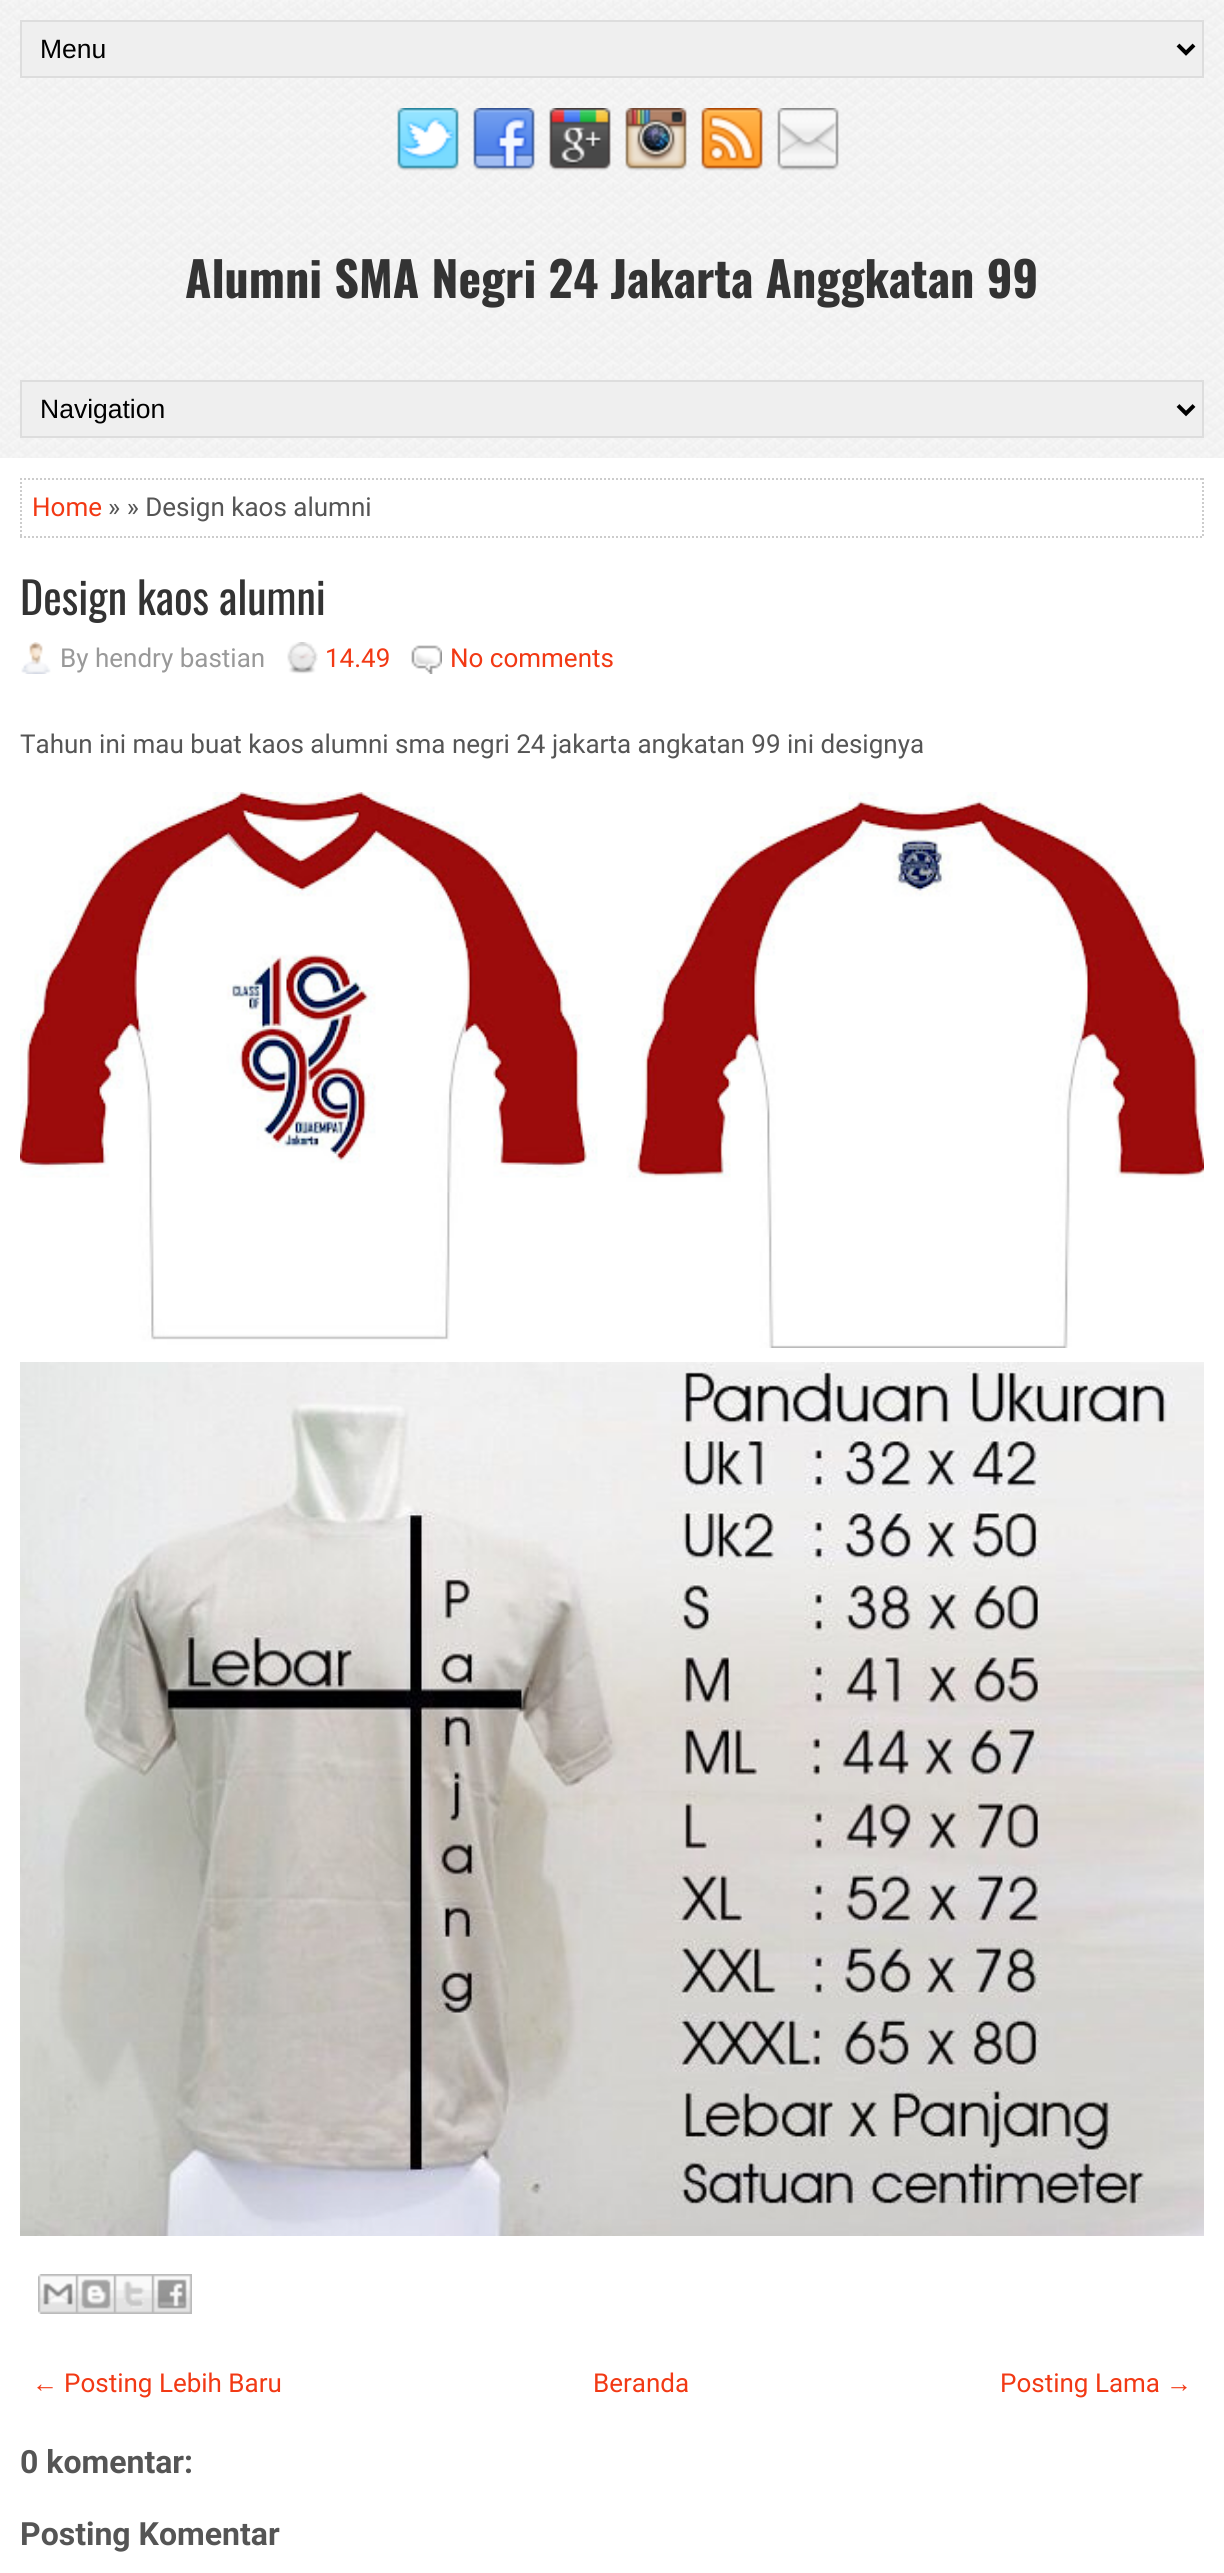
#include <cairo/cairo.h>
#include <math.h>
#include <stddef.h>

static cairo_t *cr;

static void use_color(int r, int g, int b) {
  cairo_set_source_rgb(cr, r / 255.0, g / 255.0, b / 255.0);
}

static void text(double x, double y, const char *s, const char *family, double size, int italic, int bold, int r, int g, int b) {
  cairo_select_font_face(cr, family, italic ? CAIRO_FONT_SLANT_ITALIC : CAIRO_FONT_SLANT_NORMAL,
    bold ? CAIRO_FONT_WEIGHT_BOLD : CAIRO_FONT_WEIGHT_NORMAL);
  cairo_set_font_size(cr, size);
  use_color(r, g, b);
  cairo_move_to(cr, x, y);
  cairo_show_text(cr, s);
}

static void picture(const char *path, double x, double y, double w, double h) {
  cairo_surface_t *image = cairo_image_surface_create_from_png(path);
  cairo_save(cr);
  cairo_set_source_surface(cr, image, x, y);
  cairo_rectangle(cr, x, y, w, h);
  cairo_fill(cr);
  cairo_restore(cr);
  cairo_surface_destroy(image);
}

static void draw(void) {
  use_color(255, 255, 255);
  cairo_paint(cr);
  picture("img_01.png", 0, 0, 1224, 458);
  use_color(239, 239, 239);
  cairo_rectangle(cr, 21, 21, 1182, 56);
  cairo_fill_preserve(cr);
  use_color(221, 221, 221);
  cairo_stroke(cr);
  cairo_new_path(cr);
  cairo_move_to(cr, 1178, 45);
  cairo_line_to(cr, 1186, 53);
  cairo_line_to(cr, 1194, 45);
  use_color(0, 0, 0);
  cairo_set_line_width(cr, 4);
  cairo_stroke(cr);
  picture("img_02.png", 397, 108, 62, 63);
  picture("img_03.png", 473, 108, 62, 63);
  picture("img_04.png", 549, 108, 62, 63);
  picture("img_05.png", 625, 108, 62, 63);
  picture("img_06.png", 701, 108, 62, 63);
  picture("img_07.png", 777, 108, 62, 63);
  use_color(239, 239, 239);
  cairo_rectangle(cr, 21, 381, 1182, 56);
  cairo_fill_preserve(cr);
  use_color(221, 221, 221);
  cairo_set_line_width(cr, 2);
  cairo_stroke(cr);
  cairo_new_path(cr);
  cairo_move_to(cr, 1178, 405.5);
  cairo_line_to(cr, 1186, 413.5);
  cairo_line_to(cr, 1194, 405.5);
  use_color(0, 0, 0);
  cairo_set_line_width(cr, 4);
  cairo_stroke(cr);
  cairo_new_path(cr);
  cairo_move_to(cr, 20, 479);
  cairo_line_to(cr, 1204, 479);
  use_color(204, 204, 204);
  cairo_set_line_width(cr, 2);
  cairo_set_dash(cr, (double[]){2, 2}, 2, 0);
  cairo_stroke(cr);
  cairo_new_path(cr);
  cairo_move_to(cr, 1203, 478);
  cairo_line_to(cr, 1203, 538);
  cairo_stroke(cr);
  cairo_new_path(cr);
  cairo_move_to(cr, 20, 537);
  cairo_line_to(cr, 1204, 537);
  cairo_stroke(cr);
  cairo_new_path(cr);
  cairo_move_to(cr, 21, 478);
  cairo_line_to(cr, 21, 538);
  cairo_stroke(cr);
  picture("img_08.png", 21, 642, 30, 32);
  picture("img_09.png", 287, 642, 31, 32);
  picture("img_10.png", 411, 645, 31, 29);
  picture("img_11.png", 20, 792, 1184, 556);
  picture("img_12.png", 20, 1362, 1184, 874);
  picture("img_13.png", 38, 2274, 38, 40);
  picture("img_14.png", 76, 2274, 38, 40);
  picture("img_15.png", 114, 2274, 38, 40);
  picture("img_16.png", 152, 2274, 40, 40);
  text(40, 58, "Menu", "Liberation Sans", 26.5, 0, 0, 0, 0, 0);
  text(185, 298, "Alumni SMA Negri 24 Jakarta Anggkatan 99", "Oswald", 48, 0, 1, 51, 51, 51);
  text(40, 418, "Navigation", "Liberation Sans", 26.5, 0, 0, 0, 0, 0);
  text(32, 516, "Home", "Roboto", 26, 0, 0, 242, 57, 20);
  text(108, 516, "» » Design kaos alumni", "Roboto", 26, 0, 0, 85, 85, 85);
  text(20, 615, "Design kaos alumni", "Oswald", 44, 0, 0, 51, 51, 51);
  text(60, 667, "By hendry bastian", "Roboto", 26, 0, 0, 153, 153, 153);
  text(325, 667, "14.49", "Roboto", 26, 0, 0, 242, 57, 20);
  text(450, 667, "No comments", "Roboto", 26, 0, 0, 242, 57, 20);
  text(20, 753, "Tahun ini mau buat kaos alumni sma negri 24 jakarta angkatan 99 ini designya", "Roboto", 26, 0, 0, 85, 85, 85);
  text(32, 2392, "←", "Liberation Sans", 26, 0, 0, 242, 57, 20);
  text(64, 2392, "Posting Lebih Baru", "Roboto", 26, 0, 0, 242, 57, 20);
  text(593, 2392, "Beranda", "Roboto", 26, 0, 0, 242, 57, 20);
  text(1000, 2392, "Posting Lama", "Roboto", 26, 0, 0, 242, 57, 20);
  text(1166, 2392, "→", "Liberation Sans", 26, 0, 0, 242, 57, 20);
  text(20, 2473, "0 komentar:", "Roboto", 32, 0, 1, 85, 85, 85);
  text(20, 2545, "Posting Komentar", "Roboto", 32, 0, 1, 85, 85, 85);
}

int main(void) {
  cairo_surface_t *surface = cairo_image_surface_create(CAIRO_FORMAT_RGB24, 1224, 2573);
  cr = cairo_create(surface);
  cairo_font_options_t *options = cairo_font_options_create();
  cairo_font_options_set_hint_metrics(options, CAIRO_HINT_METRICS_OFF);
  cairo_font_options_set_hint_style(options, CAIRO_HINT_STYLE_NONE);
  cairo_set_font_options(cr, options);
  cairo_set_miter_limit(cr, 4);
  draw();
  cairo_surface_write_to_png(surface, "out.png");
  cairo_font_options_destroy(options);
  cairo_destroy(cr);
  cairo_surface_destroy(surface);
  return 0;
}
